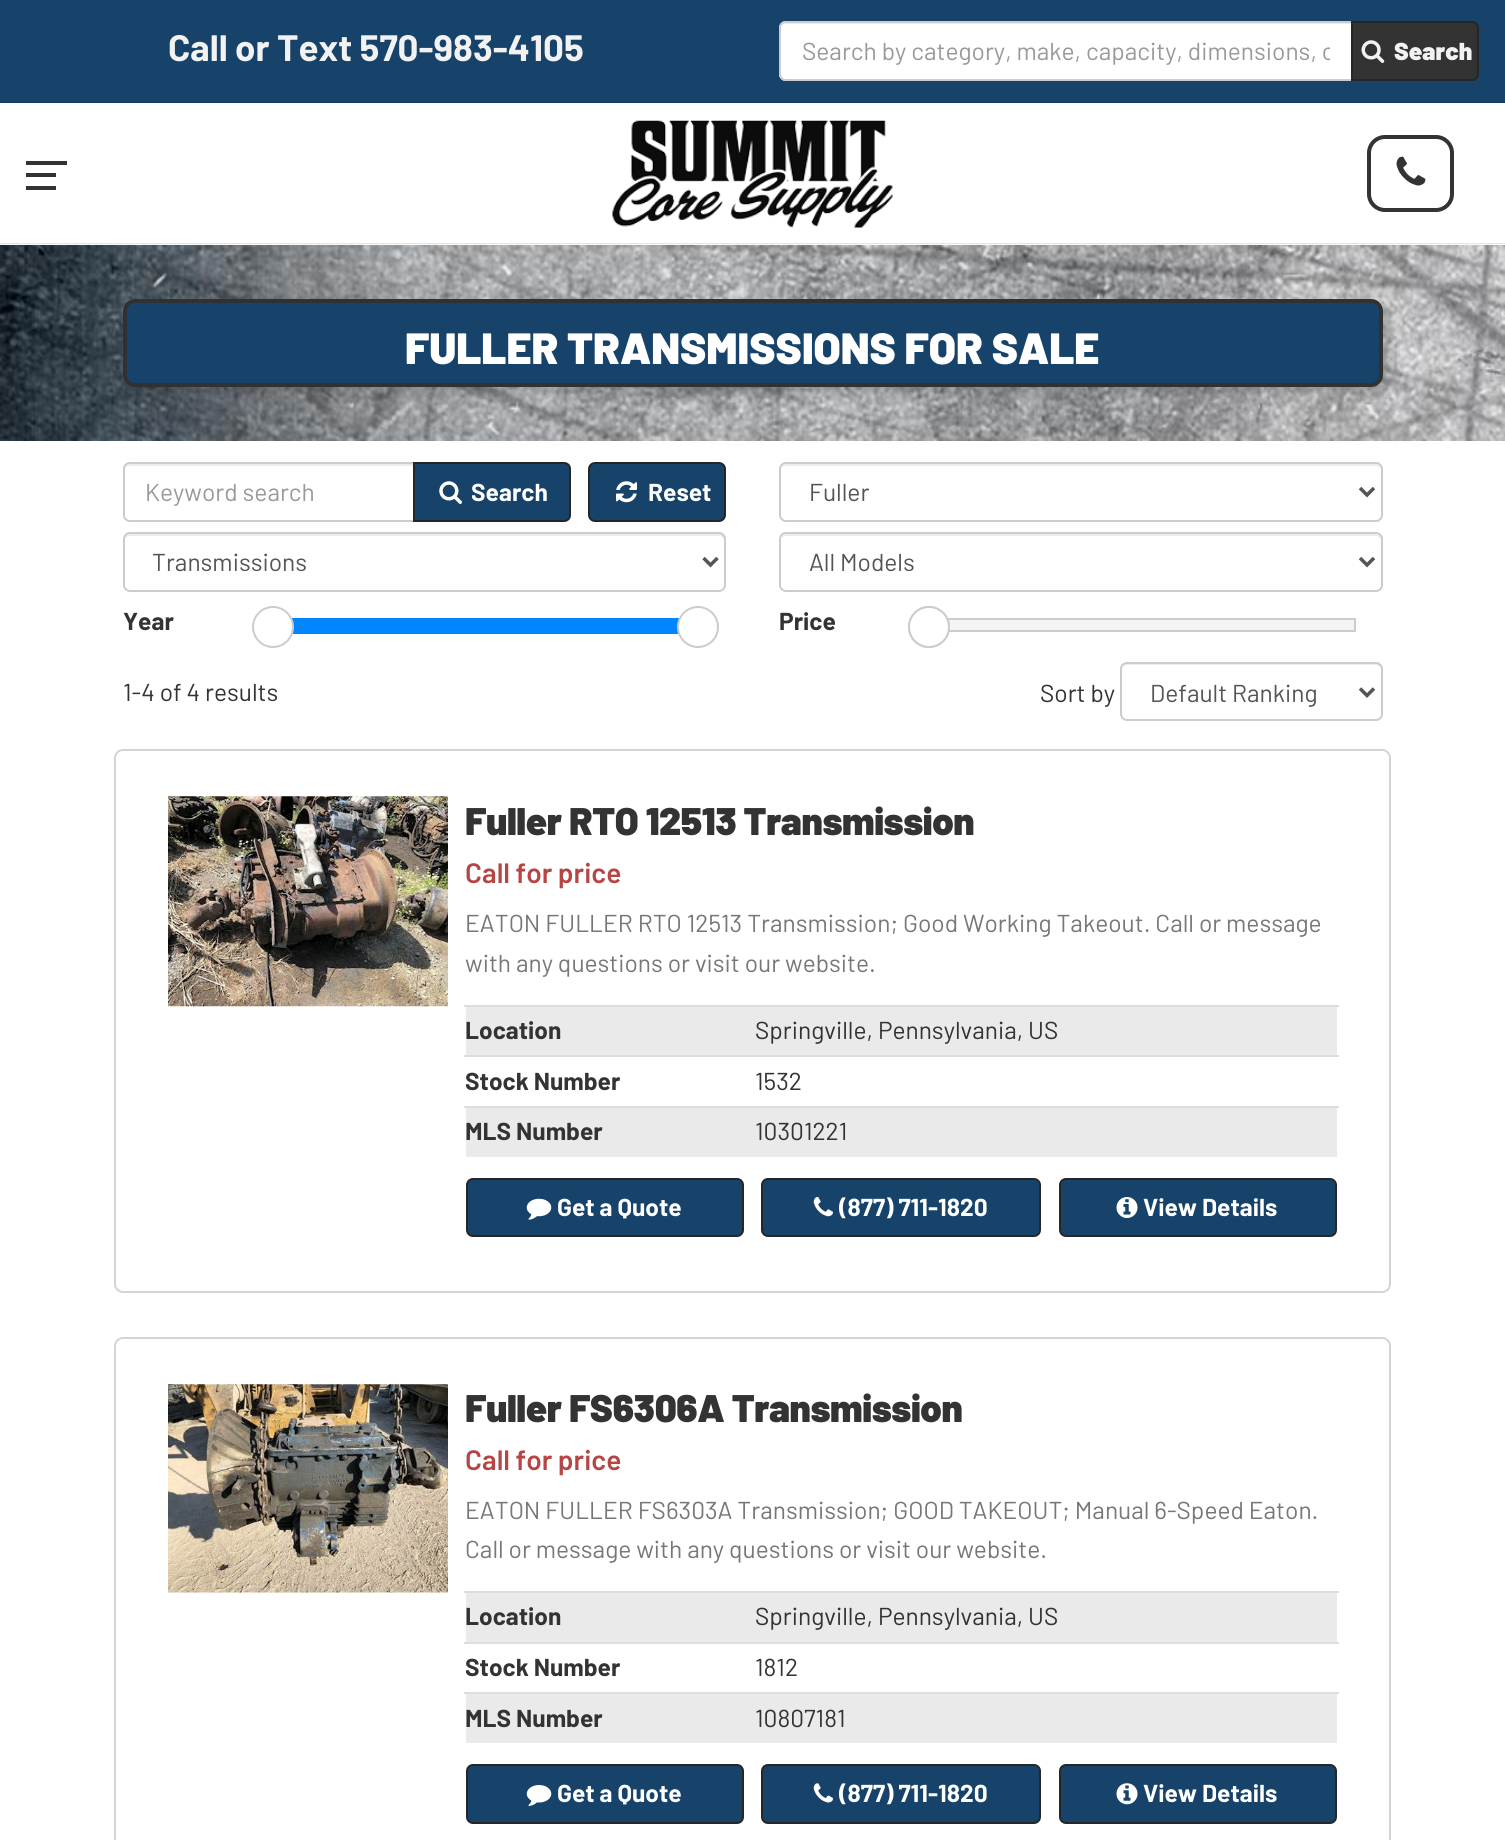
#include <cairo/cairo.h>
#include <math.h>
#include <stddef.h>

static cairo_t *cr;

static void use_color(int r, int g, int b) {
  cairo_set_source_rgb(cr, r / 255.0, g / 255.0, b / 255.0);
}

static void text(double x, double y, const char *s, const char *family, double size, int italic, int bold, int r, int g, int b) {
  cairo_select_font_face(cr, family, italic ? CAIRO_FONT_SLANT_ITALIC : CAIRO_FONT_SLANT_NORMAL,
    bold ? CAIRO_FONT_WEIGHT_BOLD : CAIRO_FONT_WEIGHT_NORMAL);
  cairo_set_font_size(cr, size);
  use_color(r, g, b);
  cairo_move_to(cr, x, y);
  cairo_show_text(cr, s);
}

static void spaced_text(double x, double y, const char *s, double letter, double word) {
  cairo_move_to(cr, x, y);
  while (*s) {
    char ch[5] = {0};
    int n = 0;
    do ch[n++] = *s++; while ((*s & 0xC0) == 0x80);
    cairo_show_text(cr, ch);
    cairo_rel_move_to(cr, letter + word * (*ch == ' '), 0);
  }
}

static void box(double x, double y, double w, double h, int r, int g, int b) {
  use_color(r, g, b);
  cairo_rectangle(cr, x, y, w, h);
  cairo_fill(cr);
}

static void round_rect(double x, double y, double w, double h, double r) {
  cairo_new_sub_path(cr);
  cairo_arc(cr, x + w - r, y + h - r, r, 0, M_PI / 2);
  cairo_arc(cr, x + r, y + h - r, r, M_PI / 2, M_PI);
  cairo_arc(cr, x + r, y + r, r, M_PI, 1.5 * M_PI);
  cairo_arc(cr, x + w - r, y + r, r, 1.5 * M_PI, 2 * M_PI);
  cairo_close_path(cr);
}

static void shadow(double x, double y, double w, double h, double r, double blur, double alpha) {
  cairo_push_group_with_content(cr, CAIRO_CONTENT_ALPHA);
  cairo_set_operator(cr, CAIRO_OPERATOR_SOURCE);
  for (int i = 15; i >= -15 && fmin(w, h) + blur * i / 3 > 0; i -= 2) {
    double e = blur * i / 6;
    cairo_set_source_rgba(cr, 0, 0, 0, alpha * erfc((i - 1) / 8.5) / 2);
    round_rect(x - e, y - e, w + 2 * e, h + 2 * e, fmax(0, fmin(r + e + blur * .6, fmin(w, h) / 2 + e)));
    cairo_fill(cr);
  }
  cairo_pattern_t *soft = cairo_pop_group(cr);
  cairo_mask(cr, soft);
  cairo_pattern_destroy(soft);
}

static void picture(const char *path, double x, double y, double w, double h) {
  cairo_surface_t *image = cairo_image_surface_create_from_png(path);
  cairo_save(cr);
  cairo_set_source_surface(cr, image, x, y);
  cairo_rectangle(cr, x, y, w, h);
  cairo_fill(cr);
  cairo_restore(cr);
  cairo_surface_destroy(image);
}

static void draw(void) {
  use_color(255, 255, 255);
  cairo_paint(cr);
  box(0, 0, 1505, 103, 23, 67, 107);
  cairo_set_source_rgba(cr, 0.2, 0.2, 0.2, 0.1);
  cairo_rectangle(cr, 0, 102, 1505, 1);
  cairo_fill(cr);
  use_color(255, 255, 255);
  cairo_new_path(cr);
  cairo_move_to(cr, 786, 21);
  cairo_line_to(cr, 1353, 21);
  cairo_line_to(cr, 1353, 81);
  cairo_line_to(cr, 786, 81);
  cairo_curve_to(cr, 782, 81, 779, 78, 779, 74);
  cairo_line_to(cr, 779, 28);
  cairo_curve_to(cr, 779, 24, 782, 21, 786, 21);
  cairo_close_path(cr);
  cairo_fill(cr);
  use_color(236, 236, 236);
  cairo_new_path(cr);
  cairo_move_to(cr, 786, 24);
  cairo_line_to(cr, 1351, 24);
  cairo_line_to(cr, 1351, 23);
  cairo_line_to(cr, 786, 23);
  cairo_curve_to(cr, 784, 23, 782, 25, 781, 27);
  cairo_curve_to(cr, 782, 25, 784, 24, 786, 24);
  cairo_close_path(cr);
  cairo_fill(cr);
  cairo_new_path(cr);
  cairo_move_to(cr, 786, 22);
  cairo_line_to(cr, 1352, 22);
  cairo_line_to(cr, 1352, 80);
  cairo_line_to(cr, 786, 80);
  cairo_curve_to(cr, 782.5, 80, 780, 77.5, 780, 74);
  cairo_line_to(cr, 780, 28);
  cairo_curve_to(cr, 780, 24.5, 782.5, 22, 786, 22);
  cairo_close_path(cr);
  use_color(204, 204, 204);
  cairo_stroke(cr);
  use_color(51, 51, 51);
  cairo_new_path(cr);
  cairo_move_to(cr, 1352, 22);
  cairo_line_to(cr, 1472, 22);
  cairo_curve_to(cr, 1475.5, 22, 1478, 24.5, 1478, 28);
  cairo_line_to(cr, 1478, 74);
  cairo_curve_to(cr, 1478, 77.5, 1475.5, 80, 1472, 80);
  cairo_line_to(cr, 1352, 80);
  cairo_close_path(cr);
  cairo_fill_preserve(cr);
  use_color(38, 38, 38);
  cairo_stroke(cr);
  picture("img_01.png", 1361, 40, 24, 23);
  picture("img_04.png", 0, 245, 1505, 196);
  use_color(0, 0, 0);
  shadow(0, 103, 1505, 140, 0, 1, 0.3);
  box(0, 103, 1505, 140, 255, 255, 255);
  box(26, 173, 30, 4, 51, 51, 51);
  box(26, 161, 41, 4, 51, 51, 51);
  box(26, 186, 30, 4, 51, 51, 51);
  picture("img_02.png", 612, 120, 281, 108);
  round_rect(1369, 137, 83, 73, 16);
  cairo_set_line_width(cr, 4);
  cairo_stroke(cr);
  picture("img_03.png", 1396, 156, 30, 30);
  use_color(52, 53, 54);
  shadow(130, 306, 1260, 88, 12, 4.5, 0.25);
  use_color(23, 67, 107);
  round_rect(125, 301, 1256, 84, 10);
  cairo_fill_preserve(cr);
  use_color(48, 49, 50);
  cairo_stroke(cr);
  use_color(236, 236, 236);
  cairo_new_path(cr);
  cairo_move_to(cr, 130, 466);
  cairo_line_to(cr, 413, 466);
  cairo_line_to(cr, 413, 464);
  cairo_line_to(cr, 128, 464);
  cairo_curve_to(cr, 124, 465, 124, 468, 124, 471);
  cairo_curve_to(cr, 124, 468, 127, 466, 130, 466);
  cairo_close_path(cr);
  cairo_fill(cr);
  cairo_new_path(cr);
  cairo_move_to(cr, 130, 463);
  cairo_line_to(cr, 414, 463);
  cairo_line_to(cr, 414, 521);
  cairo_line_to(cr, 130, 521);
  cairo_curve_to(cr, 126.5, 521, 124, 518.5, 124, 515);
  cairo_line_to(cr, 124, 469);
  cairo_curve_to(cr, 124, 465.5, 126.5, 463, 130, 463);
  cairo_close_path(cr);
  use_color(204, 204, 204);
  cairo_set_line_width(cr, 2);
  cairo_stroke(cr);
  use_color(23, 67, 107);
  cairo_new_path(cr);
  cairo_move_to(cr, 414, 463);
  cairo_line_to(cr, 564, 463);
  cairo_curve_to(cr, 567.5, 463, 570, 465.5, 570, 469);
  cairo_line_to(cr, 570, 515);
  cairo_curve_to(cr, 570, 518.5, 567.5, 521, 564, 521);
  cairo_line_to(cr, 414, 521);
  cairo_close_path(cr);
  cairo_fill_preserve(cr);
  use_color(38, 38, 38);
  cairo_stroke(cr);
  picture("img_05.png", 439, 481, 23, 23);
  use_color(23, 67, 107);
  round_rect(589, 463, 136, 58, 6);
  cairo_fill_preserve(cr);
  use_color(38, 38, 38);
  cairo_stroke(cr);
  picture("img_06.png", 616, 481, 21, 22);
  use_color(236, 236, 236);
  cairo_new_path(cr);
  cairo_move_to(cr, 130, 536);
  cairo_line_to(cr, 719, 536);
  cairo_curve_to(cr, 722, 536, 724, 538, 724, 541);
  cairo_line_to(cr, 724, 586);
  cairo_line_to(cr, 724, 589);
  cairo_curve_to(cr, 724, 588, 725, 586, 725, 585);
  cairo_line_to(cr, 725, 539);
  cairo_curve_to(cr, 725, 536, 723, 534, 720, 534);
  cairo_line_to(cr, 129, 534);
  cairo_curve_to(cr, 126, 534, 124, 536, 124, 539);
  cairo_line_to(cr, 124, 541);
  cairo_curve_to(cr, 124, 538, 127, 536, 130, 536);
  cairo_close_path(cr);
  cairo_fill(cr);
  round_rect(124, 533, 601, 58, 6);
  use_color(204, 204, 204);
  cairo_stroke(cr);
  cairo_new_path(cr);
  cairo_move_to(cr, 703.5, 558);
  cairo_line_to(cr, 710.5, 565);
  cairo_line_to(cr, 717.5, 558);
  use_color(85, 85, 85);
  cairo_set_line_width(cr, 3.5);
  cairo_stroke(cr);
  use_color(236, 236, 236);
  cairo_new_path(cr);
  cairo_move_to(cr, 786, 466);
  cairo_line_to(cr, 1376, 466);
  cairo_curve_to(cr, 1378, 466, 1381, 468, 1381, 471);
  cairo_line_to(cr, 1381, 469);
  cairo_curve_to(cr, 1381, 466, 1379, 464, 1376, 464);
  cairo_line_to(cr, 786, 464);
  cairo_curve_to(cr, 784, 464, 781, 466, 781, 468);
  cairo_curve_to(cr, 782, 467, 784, 466, 786, 466);
  cairo_close_path(cr);
  cairo_fill(cr);
  round_rect(780, 463, 602, 58, 6);
  use_color(204, 204, 204);
  cairo_set_line_width(cr, 2);
  cairo_stroke(cr);
  cairo_new_path(cr);
  cairo_move_to(cr, 1360, 488);
  cairo_line_to(cr, 1367, 495);
  cairo_line_to(cr, 1374, 488);
  use_color(85, 85, 85);
  cairo_set_line_width(cr, 3.5);
  cairo_stroke(cr);
  use_color(236, 236, 236);
  cairo_new_path(cr);
  cairo_move_to(cr, 786, 536);
  cairo_line_to(cr, 1376, 536);
  cairo_curve_to(cr, 1378, 536, 1381, 538, 1381, 541);
  cairo_line_to(cr, 1381, 539);
  cairo_curve_to(cr, 1381, 536, 1379, 534, 1376, 534);
  cairo_line_to(cr, 786, 534);
  cairo_curve_to(cr, 784, 534, 781, 536, 781, 538);
  cairo_curve_to(cr, 782, 537, 784, 536, 786, 536);
  cairo_close_path(cr);
  cairo_fill(cr);
  round_rect(780, 533, 602, 58, 6);
  use_color(204, 204, 204);
  cairo_set_line_width(cr, 2);
  cairo_stroke(cr);
  cairo_new_path(cr);
  cairo_move_to(cr, 1360, 558);
  cairo_line_to(cr, 1367, 565);
  cairo_line_to(cr, 1374, 558);
  use_color(85, 85, 85);
  cairo_set_line_width(cr, 3.5);
  cairo_stroke(cr);
  box(292, 618, 387, 16, 0, 134, 255);
  use_color(255, 255, 255);
  cairo_arc(cr, 273, 627, 20, 0, 2 * M_PI);
  cairo_fill_preserve(cr);
  use_color(204, 204, 204);
  cairo_set_line_width(cr, 2);
  cairo_stroke(cr);
  use_color(255, 255, 255);
  cairo_arc(cr, 698, 627, 20, 0, 2 * M_PI);
  cairo_fill_preserve(cr);
  use_color(204, 204, 204);
  cairo_stroke(cr);
  box(948, 620, 406, 10, 245, 245, 245);
  cairo_rectangle(cr, 929, 619, 426, 12);
  use_color(204, 204, 204);
  cairo_stroke(cr);
  cairo_arc(cr, 929, 627, 20, 0, 2 * M_PI);
  cairo_stroke(cr);
  use_color(255, 255, 255);
  cairo_arc(cr, 929, 627, 20, 0, 2 * M_PI);
  cairo_fill_preserve(cr);
  use_color(204, 204, 204);
  cairo_stroke(cr);
  use_color(236, 236, 236);
  cairo_new_path(cr);
  cairo_move_to(cr, 1127, 665);
  cairo_line_to(cr, 1376, 665);
  cairo_curve_to(cr, 1378, 665, 1381, 667, 1381, 670);
  cairo_line_to(cr, 1381, 668);
  cairo_curve_to(cr, 1381, 665, 1379, 663, 1376, 663);
  cairo_line_to(cr, 1127, 663);
  cairo_curve_to(cr, 1124, 663, 1122, 665, 1122, 668);
  cairo_line_to(cr, 1122, 670);
  cairo_curve_to(cr, 1122, 667, 1124, 665, 1127, 665);
  cairo_close_path(cr);
  cairo_fill(cr);
  round_rect(1121, 663, 261, 57, 6);
  use_color(204, 204, 204);
  cairo_stroke(cr);
  cairo_new_path(cr);
  cairo_move_to(cr, 1360, 688.5);
  cairo_line_to(cr, 1367, 695.5);
  cairo_line_to(cr, 1374, 688.5);
  use_color(85, 85, 85);
  cairo_set_line_width(cr, 3.5);
  cairo_stroke(cr);
  round_rect(115, 750, 1275, 542, 8);
  use_color(212, 212, 212);
  cairo_set_line_width(cr, 2);
  cairo_stroke(cr);
  picture("img_07.png", 168, 796, 280, 211);
  box(466, 1007, 871, 48, 234, 234, 234);
  box(464, 1005, 875, 2, 221, 221, 221);
  box(464, 1055, 875, 2, 221, 221, 221);
  box(466, 1108, 871, 49, 234, 234, 234);
  box(464, 1106, 875, 2, 221, 221, 221);
  use_color(23, 67, 107);
  round_rect(467, 1179, 276, 57, 6);
  cairo_fill_preserve(cr);
  use_color(38, 38, 38);
  cairo_stroke(cr);
  picture("img_08.png", 526, 1198, 26, 22);
  use_color(23, 67, 107);
  round_rect(762, 1179, 278, 57, 6);
  cairo_fill_preserve(cr);
  use_color(38, 38, 38);
  cairo_stroke(cr);
  picture("img_09.png", 813, 1197, 20, 20);
  use_color(23, 67, 107);
  round_rect(1060, 1179, 276, 57, 6);
  cairo_fill_preserve(cr);
  use_color(38, 38, 38);
  cairo_stroke(cr);
  picture("img_10.png", 1116, 1197, 22, 21);
  round_rect(115, 1338, 1275, 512, 8);
  use_color(212, 212, 212);
  cairo_stroke(cr);
  picture("img_11.png", 168, 1384, 280, 209);
  box(466, 1593, 871, 49, 234, 234, 234);
  box(464, 1591, 875, 2, 221, 221, 221);
  box(464, 1642, 875, 2, 221, 221, 221);
  box(466, 1694, 871, 49, 234, 234, 234);
  box(464, 1692, 875, 2, 221, 221, 221);
  use_color(23, 67, 107);
  round_rect(467, 1765, 276, 58, 6);
  cairo_fill_preserve(cr);
  use_color(38, 38, 38);
  cairo_stroke(cr);
  picture("img_12.png", 526, 1785, 26, 21);
  use_color(23, 67, 107);
  round_rect(762, 1765, 278, 58, 6);
  cairo_fill_preserve(cr);
  use_color(38, 38, 38);
  cairo_stroke(cr);
  picture("img_13.png", 813, 1783, 20, 20);
  use_color(23, 67, 107);
  round_rect(1060, 1765, 276, 58, 6);
  cairo_fill_preserve(cr);
  use_color(38, 38, 38);
  cairo_stroke(cr);
  picture("img_14.png", 1116, 1783, 22, 22);
  text(168, 61, "Call or Text 570-983-4105", "Barlow", 36.75, 0, 1, 242, 242, 242);
  cairo_save(cr);
  cairo_rectangle(cr, 802, 37, 528, 30);
  cairo_clip(cr);
  text(802, 60, "Search by category, make, capacity, dimensions, o", "Barlow", 24.5, 0, 0, 153, 153, 153);
  cairo_restore(cr);
  text(1394, 60, "Search", "Barlow Black", 24.5, 0, 0, 242, 242, 242);
  text(405, 364, "FULLER TRANSMISSIONS FOR SALE", "Barlow Black", 43.75, 0, 0, 255, 255, 255);
  text(145, 501, "Keyword search", "Barlow", 24.5, 0, 0, 153, 153, 153);
  text(471, 501, "Search", "Barlow", 24.5, 0, 1, 255, 255, 255);
  text(648, 501, "Reset", "Barlow", 24.5, 0, 1, 255, 255, 255);
  text(152, 571, "Transmissions", "Barlow", 24.5, 0, 0, 85, 85, 85);
  text(809, 501, "Fuller", "Barlow", 24.5, 0, 0, 85, 85, 85);
  text(809, 571, "All Models", "Barlow", 24.5, 0, 0, 85, 85, 85);
  text(123, 630, "Year", "Barlow", 24.5, 0, 1, 51, 51, 51);
  text(779, 630, "Price", "Barlow", 24.5, 0, 1, 51, 51, 51);
  text(123, 701, "1-4 of 4 results", "Barlow", 24.5, 0, 0, 51, 51, 51);
  text(1040, 702, "Sort by", "Barlow", 24.5, 0, 0, 51, 51, 51);
  text(1150, 702, "Default Ranking", "Barlow", 24.5, 0, 0, 85, 85, 85);
  cairo_select_font_face(cr, "Barlow Black", CAIRO_FONT_SLANT_NORMAL, CAIRO_FONT_WEIGHT_NORMAL);
  cairo_set_font_size(cr, 38.5);
  use_color(51, 51, 51);
  spaced_text(465, 835, "Fuller RTO 12513 Transmission", -0.35, 0);
  text(465, 883, "Call for price", "Barlow SemiBold", 28, 0, 0, 182, 69, 69);
  text(465, 932, "EATON FULLER RTO 12513 Transmission; Good Working Takeout. Call or message", "Barlow", 24.5, 0, 0, 119, 119, 119);
  text(465, 972, "with any questions or visit our website.", "Barlow", 24.5, 0, 0, 119, 119, 119);
  text(465, 1039, "Location", "Barlow", 24.5, 0, 1, 51, 51, 51);
  text(755, 1039, "Springville, Pennsylvania, US", "Barlow", 24.5, 0, 0, 51, 51, 51);
  text(465, 1090, "Stock Number", "Barlow", 24.5, 0, 1, 51, 51, 51);
  text(755, 1090, "1532", "Barlow", 24.5, 0, 0, 51, 51, 51);
  text(465, 1140, "MLS Number", "Barlow", 24.5, 0, 1, 51, 51, 51);
  text(755, 1140, "10301221", "Barlow", 24.5, 0, 0, 51, 51, 51);
  text(557, 1216, "Get a Quote", "Barlow", 24.5, 0, 1, 255, 255, 255);
  text(839, 1216, "(877) 711-1820", "Barlow", 24.5, 0, 1, 255, 255, 255);
  text(1143, 1216, "View Details", "Barlow", 24.5, 0, 1, 255, 255, 255);
  cairo_select_font_face(cr, "Barlow Black", CAIRO_FONT_SLANT_NORMAL, CAIRO_FONT_WEIGHT_NORMAL);
  cairo_set_font_size(cr, 38.5);
  use_color(51, 51, 51);
  spaced_text(465, 1422, "Fuller FS6306A Transmission", -0.35, 0);
  text(465, 1470, "Call for price", "Barlow SemiBold", 28, 0, 0, 182, 69, 69);
  text(465, 1519, "EATON FULLER FS6303A Transmission; GOOD TAKEOUT; Manual 6-Speed Eaton.", "Barlow", 24.5, 0, 0, 119, 119, 119);
  text(465, 1558, "Call or message with any questions or visit our website.", "Barlow", 24.5, 0, 0, 119, 119, 119);
  text(465, 1625, "Location", "Barlow", 24.5, 0, 1, 51, 51, 51);
  text(755, 1625, "Springville, Pennsylvania, US", "Barlow", 24.5, 0, 0, 51, 51, 51);
  text(465, 1676, "Stock Number", "Barlow", 24.5, 0, 1, 51, 51, 51);
  text(755, 1676, "1812", "Barlow", 24.5, 0, 0, 51, 51, 51);
  text(465, 1727, "MLS Number", "Barlow", 24.5, 0, 1, 51, 51, 51);
  text(755, 1727, "10807181", "Barlow", 24.5, 0, 0, 51, 51, 51);
  text(557, 1802, "Get a Quote", "Barlow", 24.5, 0, 1, 255, 255, 255);
  text(839, 1802, "(877) 711-1820", "Barlow", 24.5, 0, 1, 255, 255, 255);
  text(1143, 1802, "View Details", "Barlow", 24.5, 0, 1, 255, 255, 255);
}

int main(void) {
  cairo_surface_t *surface = cairo_image_surface_create(CAIRO_FORMAT_RGB24, 1505, 1840);
  cr = cairo_create(surface);
  cairo_font_options_t *options = cairo_font_options_create();
  cairo_font_options_set_hint_metrics(options, CAIRO_HINT_METRICS_OFF);
  cairo_font_options_set_hint_style(options, CAIRO_HINT_STYLE_NONE);
  cairo_set_font_options(cr, options);
  cairo_set_miter_limit(cr, 4);
  draw();
  cairo_surface_write_to_png(surface, "out.png");
  cairo_font_options_destroy(options);
  cairo_destroy(cr);
  cairo_surface_destroy(surface);
  return 0;
}
